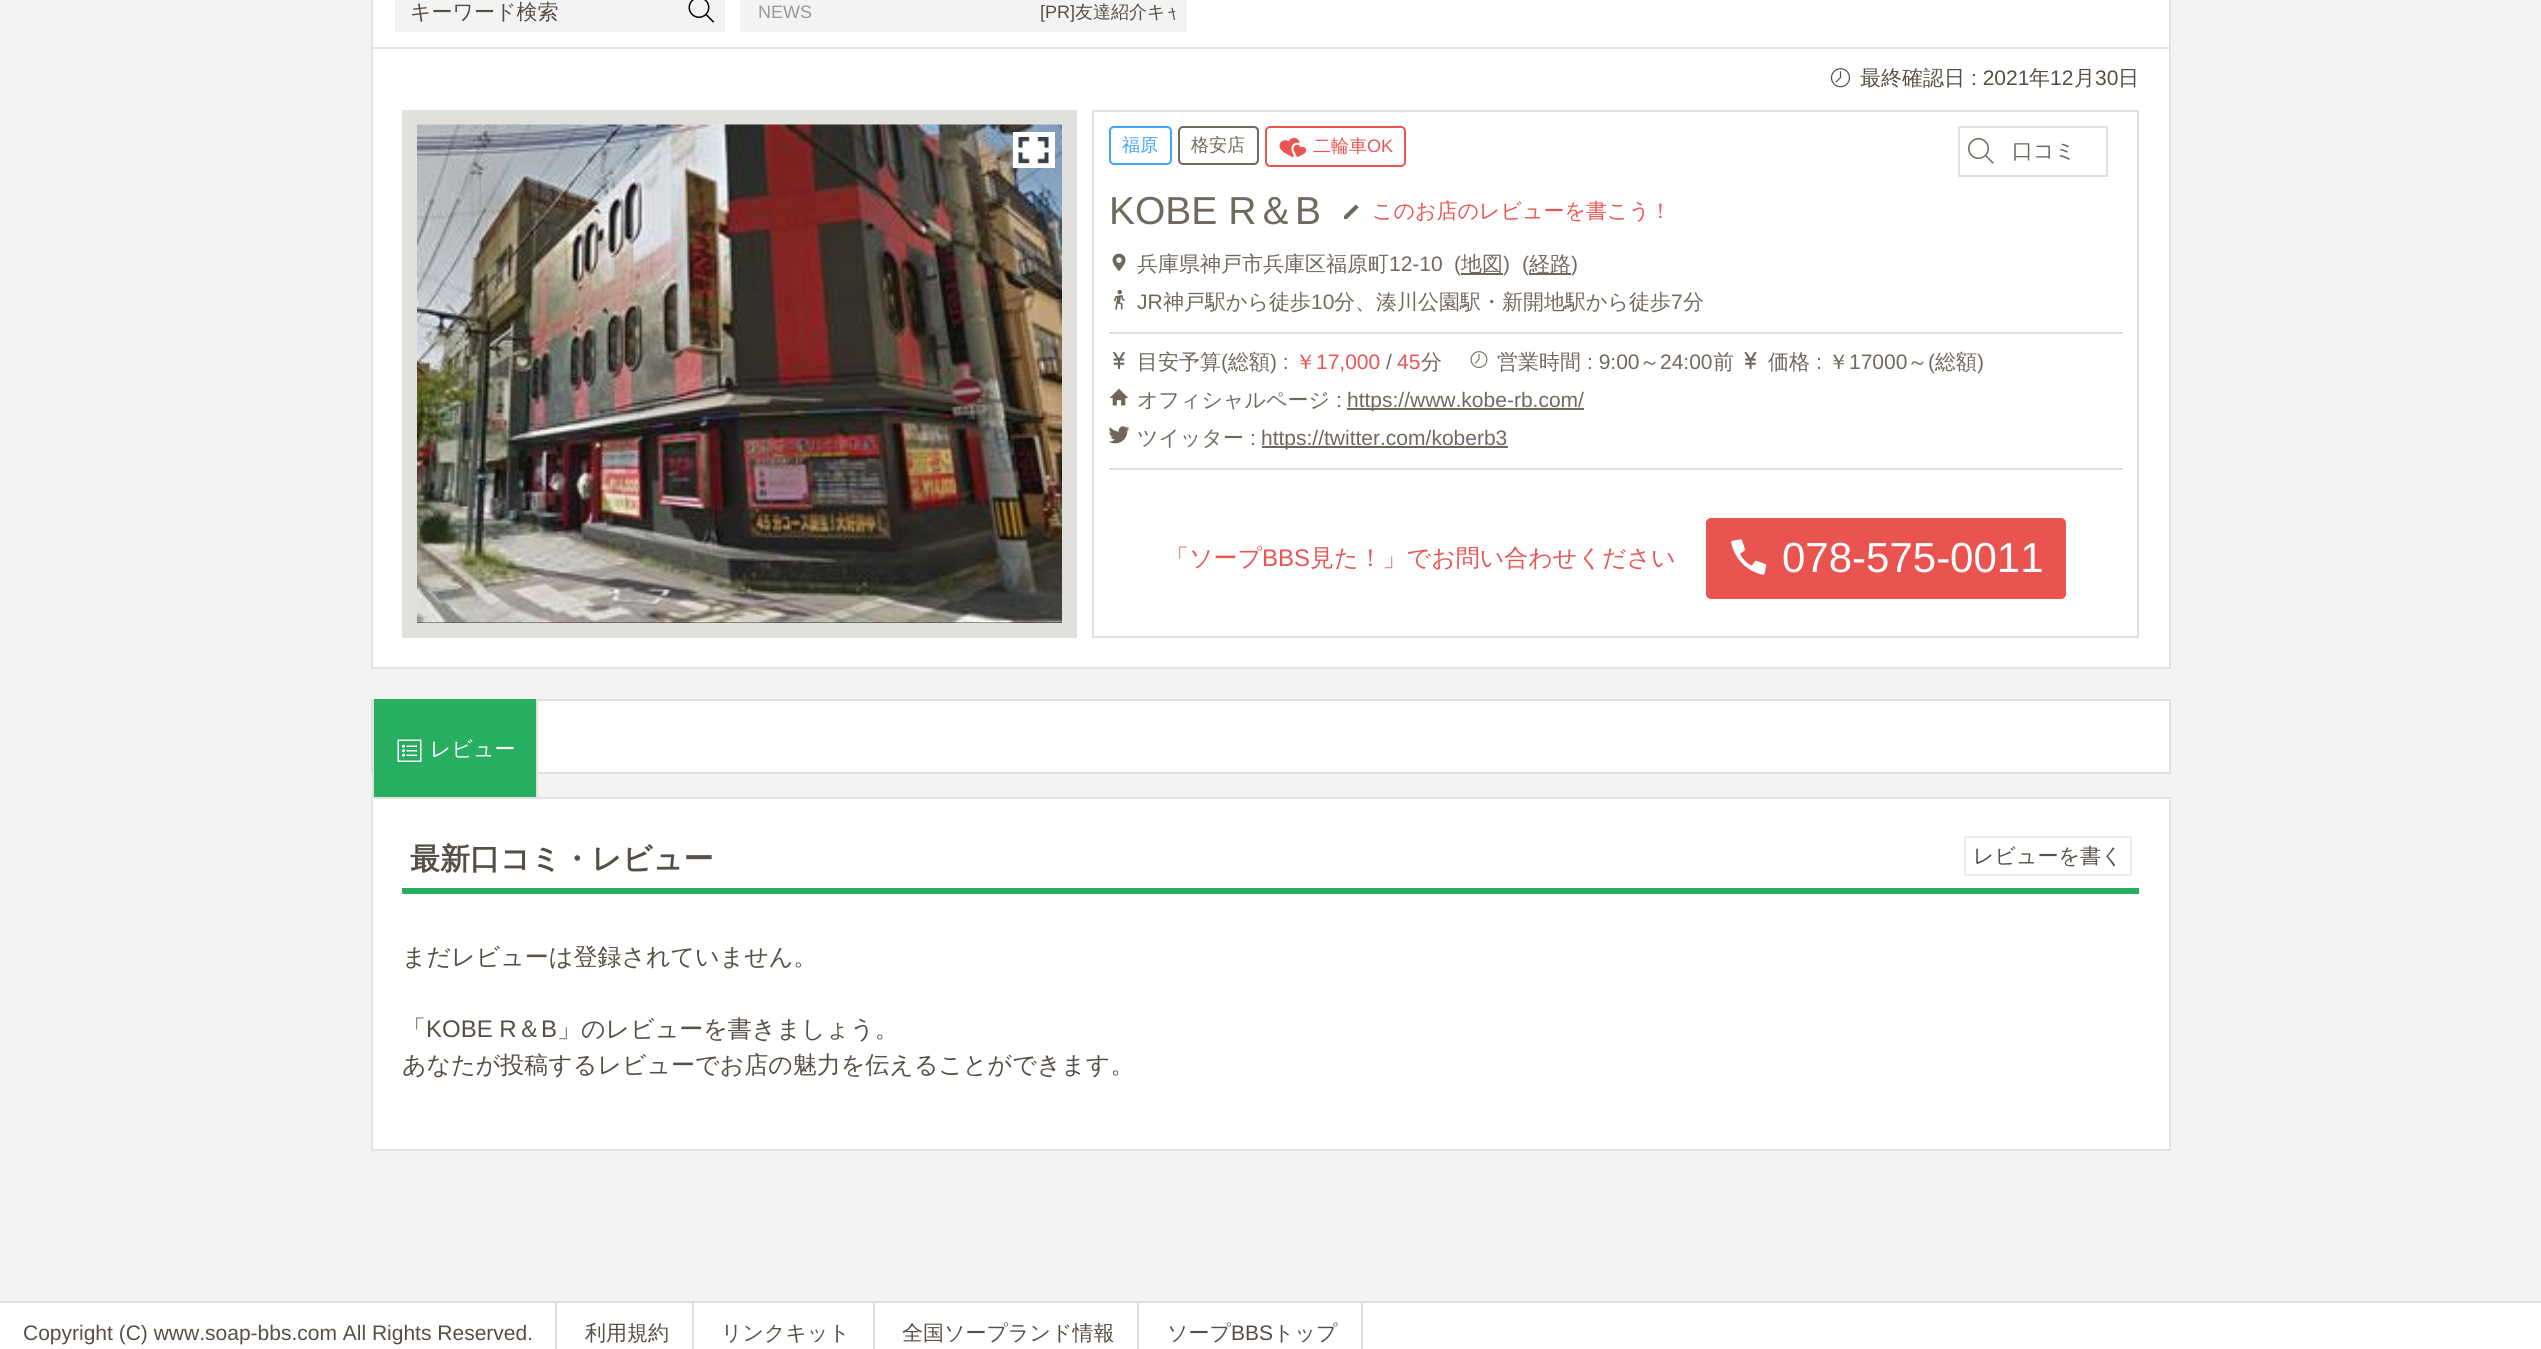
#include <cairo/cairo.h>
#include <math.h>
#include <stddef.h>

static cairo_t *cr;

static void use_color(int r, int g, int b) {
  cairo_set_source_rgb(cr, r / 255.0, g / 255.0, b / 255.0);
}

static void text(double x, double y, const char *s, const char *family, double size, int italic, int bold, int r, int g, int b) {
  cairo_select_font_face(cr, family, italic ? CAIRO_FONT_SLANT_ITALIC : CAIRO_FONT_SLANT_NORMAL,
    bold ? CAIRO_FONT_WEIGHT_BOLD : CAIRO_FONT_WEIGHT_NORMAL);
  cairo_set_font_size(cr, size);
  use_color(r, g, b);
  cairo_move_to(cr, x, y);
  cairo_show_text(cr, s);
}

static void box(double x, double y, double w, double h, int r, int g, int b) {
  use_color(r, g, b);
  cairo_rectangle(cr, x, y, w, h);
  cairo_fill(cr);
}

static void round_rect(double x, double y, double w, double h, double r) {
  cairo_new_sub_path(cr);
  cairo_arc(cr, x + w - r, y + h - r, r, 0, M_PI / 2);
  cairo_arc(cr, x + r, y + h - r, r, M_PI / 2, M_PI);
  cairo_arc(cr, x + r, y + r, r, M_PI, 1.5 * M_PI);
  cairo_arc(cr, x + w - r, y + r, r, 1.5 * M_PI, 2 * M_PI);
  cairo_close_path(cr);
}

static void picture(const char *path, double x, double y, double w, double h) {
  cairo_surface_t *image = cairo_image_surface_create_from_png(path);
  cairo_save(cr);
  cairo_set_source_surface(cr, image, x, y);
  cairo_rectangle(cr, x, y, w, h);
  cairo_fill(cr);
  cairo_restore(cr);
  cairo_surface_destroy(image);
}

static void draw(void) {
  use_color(243, 243, 243);
  cairo_paint(cr);
  use_color(255, 255, 255);
  cairo_rectangle(cr, 372, -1, 1798, 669);
  cairo_fill_preserve(cr);
  use_color(227, 227, 227);
  cairo_stroke(cr);
  box(395, 0, 330, 32, 243, 243, 243);
  picture("img_01.png", 688, 0, 27, 23);
  box(740, 0, 447, 32, 243, 243, 243);
  box(372, 47, 1797, 2, 227, 227, 227);
  picture("img_02.png", 1830, 68, 21, 20);
  box(402, 110, 675, 528, 226, 224, 220);
  box(417, 622, 645, 1, 51, 51, 51);
  picture("img_03.png", 417, 124, 645, 499);
  box(1013, 132, 42, 36, 255, 255, 255);
  picture("img_04.png", 1018, 136, 31, 28);
  cairo_rectangle(cr, 1093, 111, 1045, 526);
  use_color(226, 224, 220);
  cairo_stroke(cr);
  round_rect(1110, 127, 61, 37, 4);
  use_color(64, 165, 255);
  cairo_stroke(cr);
  round_rect(1179, 127, 79, 37, 4);
  use_color(111, 105, 95);
  cairo_stroke(cr);
  round_rect(1266, 127, 139, 39, 4);
  use_color(233, 85, 81);
  cairo_stroke(cr);
  picture("img_05.png", 1279, 137, 28, 21);
  cairo_rectangle(cr, 1959, 127, 148, 49);
  use_color(226, 224, 220);
  cairo_stroke(cr);
  picture("img_06.png", 1968, 138, 26, 26);
  picture("img_07.png", 1344, 204, 15, 15);
  picture("img_08.png", 1112, 253, 14, 19);
  box(1529, 273, 42, 2, 109, 103, 94);
  picture("img_09.png", 1113, 289, 13, 21);
  box(1109, 332, 1014, 2, 226, 224, 220);
  picture("img_10.png", 1112, 352, 14, 17);
  picture("img_11.png", 1470, 351, 18, 17);
  picture("img_12.png", 1744, 352, 13, 17);
  picture("img_13.png", 1109, 388, 20, 18);
  box(1347, 408, 237, 2, 109, 103, 94);
  picture("img_14.png", 1108, 426, 22, 18);
  box(1262, 446, 246, 2, 109, 103, 94);
  box(1109, 468, 1014, 2, 226, 224, 220);
  use_color(233, 84, 80);
  round_rect(1706, 518, 360, 81, 5);
  cairo_fill(cr);
  picture("img_15.png", 1731, 539, 36, 36);
  box(538, 701, 1631, 71, 255, 255, 255);
  cairo_rectangle(cr, 372, 700, 1798, 73);
  use_color(226, 224, 220);
  cairo_stroke(cr);
  box(374, 699, 162, 98, 39, 174, 96);
  box(536, 699, 2, 98, 226, 224, 220);
  box(372, 699, 2, 98, 226, 224, 220);
  picture("img_16.png", 397, 739, 25, 23);
  use_color(255, 255, 255);
  cairo_rectangle(cr, 372, 798, 1798, 352);
  cairo_fill_preserve(cr);
  use_color(227, 227, 227);
  cairo_stroke(cr);
  box(402, 888, 1737, 6, 39, 174, 96);
  cairo_rectangle(cr, 1965, 837, 166, 38);
  use_color(236, 236, 236);
  cairo_stroke(cr);
  box(0, 1303, 2541, 46, 255, 255, 255);
  box(0, 1301, 2541, 2, 226, 224, 220);
  box(555, 1302, 2, 47, 226, 224, 220);
  box(692, 1302, 2, 47, 226, 224, 220);
  box(873, 1302, 2, 47, 226, 224, 220);
  box(1137, 1302, 2, 47, 226, 224, 220);
  box(1361, 1302, 2, 47, 226, 224, 220);
  text(410, 19, "キーワード検索", "WenQuanYi Zen Hei Medium", 21, 0, 0, 86, 79, 71);
  text(758, 18, "NEWS", "Liberation Sans", 18, 0, 0, 153, 153, 153);
  text(1040, 18, "[PR]", "Liberation Sans", 18, 0, 0, 86, 79, 71);
  cairo_save(cr);
  cairo_rectangle(cr, 842, 0, 333, 32);
  cairo_clip(cr);
  text(1075, 18, "友達紹介キャ", "WenQuanYi Zen Hei Medium", 18, 0, 0, 86, 79, 71);
  cairo_restore(cr);
  text(1860, 85, "最終確認日", "WenQuanYi Zen Hei Medium", 21, 0, 0, 86, 79, 71);
  text(1971, 85, ": 2021", "Liberation Sans", 21, 0, 0, 86, 79, 71);
  text(2029, 85, "年", "WenQuanYi Zen Hei Medium", 21, 0, 0, 86, 79, 71);
  text(2050, 85, "12", "Liberation Sans", 21, 0, 0, 86, 79, 71);
  text(2074, 85, "月", "WenQuanYi Zen Hei Medium", 21, 0, 0, 86, 79, 71);
  text(2095, 85, "30", "Liberation Sans", 21, 0, 0, 86, 79, 71);
  text(2118, 85, "日", "WenQuanYi Zen Hei Medium", 21, 0, 0, 86, 79, 71);
  text(1122, 151, "福原", "WenQuanYi Zen Hei Medium", 18, 0, 0, 64, 165, 255);
  text(1191, 151, "格安店", "WenQuanYi Zen Hei Medium", 18, 0, 0, 111, 105, 95);
  text(1313, 152, "二輪車", "WenQuanYi Zen Hei Medium", 18, 0, 0, 233, 85, 81);
  text(1367, 152, "OK", "Liberation Sans", 18, 0, 0, 233, 85, 81);
  text(2012, 158, "口コミ", "WenQuanYi Zen Hei Medium", 21, 0, 0, 111, 105, 95);
  text(1109, 224, "KOBE R", "Liberation Sans", 39, 0, 0, 111, 105, 95);
  text(1256, 224, "＆", "WenQuanYi Zen Hei Medium", 39, 0, 0, 111, 105, 95);
  text(1295, 224, "B", "Liberation Sans", 39, 0, 0, 111, 105, 95);
  text(1372, 218, "このお店のレビューを書こう！", "WenQuanYi Zen Hei Medium", 21, 0, 0, 233, 85, 81);
  text(1137, 271, "兵庫県神戸市兵庫区福原町", "WenQuanYi Zen Hei Medium", 21, 0, 0, 111, 105, 95);
  text(1389, 271, "12-10", "Liberation Sans", 21, 0, 0, 111, 105, 95);
  text(1454, 271, "(", "Liberation Sans", 21, 0, 0, 111, 105, 95);
  box(1461, 273, 42, 2, 109, 103, 94);
  text(1461, 271, "地図", "WenQuanYi Zen Hei Medium", 21, 0, 0, 111, 105, 95);
  text(1503, 271, ")", "Liberation Sans", 21, 0, 0, 111, 105, 95);
  text(1522, 271, "(", "Liberation Sans", 21, 0, 0, 111, 105, 95);
  text(1529, 271, "経路", "WenQuanYi Zen Hei Medium", 21, 0, 0, 111, 105, 95);
  text(1571, 271, ")", "Liberation Sans", 21, 0, 0, 111, 105, 95);
  text(1137, 309, "JR", "Liberation Sans", 21, 0, 0, 111, 105, 95);
  text(1163, 309, "神戸駅から徒歩", "WenQuanYi Zen Hei Medium", 21, 0, 0, 111, 105, 95);
  text(1311, 309, "10", "Liberation Sans", 21, 0, 0, 111, 105, 95);
  text(1334, 309, "分、湊川公園駅・新開地駅から徒歩", "WenQuanYi Zen Hei Medium", 21, 0, 0, 111, 105, 95);
  text(1671, 309, "7", "Liberation Sans", 21, 0, 0, 111, 105, 95);
  text(1683, 309, "分", "WenQuanYi Zen Hei Medium", 21, 0, 0, 111, 105, 95);
  text(1137, 369, "目安予算", "WenQuanYi Zen Hei Medium", 21, 0, 0, 111, 105, 95);
  text(1221, 369, "(", "Liberation Sans", 21, 0, 0, 111, 105, 95);
  text(1228, 369, "総額", "WenQuanYi Zen Hei Medium", 21, 0, 0, 111, 105, 95);
  text(1270, 369, ") :", "Liberation Sans", 21, 0, 0, 111, 105, 95);
  text(1295, 369, "￥", "WenQuanYi Zen Hei Medium", 21, 0, 0, 233, 85, 81);
  text(1316, 369, "17,000", "Liberation Sans", 21, 0, 0, 233, 85, 81);
  text(1386, 369, "/", "Liberation Sans", 21, 0, 0, 111, 105, 95);
  text(1397, 369, "45", "Liberation Sans", 21, 0, 0, 233, 85, 81);
  text(1421, 369, "分", "WenQuanYi Zen Hei Medium", 21, 0, 0, 111, 105, 95);
  text(1497, 369, "営業時間", "WenQuanYi Zen Hei Medium", 21, 0, 0, 111, 105, 95);
  text(1587, 369, ": 9:00", "Liberation Sans", 21, 0, 0, 111, 105, 95);
  text(1639, 369, "～", "WenQuanYi Zen Hei Medium", 21, 0, 0, 111, 105, 95);
  text(1660, 369, "24:00", "Liberation Sans", 21, 0, 0, 111, 105, 95);
  text(1713, 369, "前", "WenQuanYi Zen Hei Medium", 21, 0, 0, 111, 105, 95);
  text(1768, 369, "価格", "WenQuanYi Zen Hei Medium", 21, 0, 0, 111, 105, 95);
  text(1816, 369, ":", "Liberation Sans", 21, 0, 0, 111, 105, 95);
  text(1828, 369, "￥", "WenQuanYi Zen Hei Medium", 21, 0, 0, 111, 105, 95);
  text(1849, 369, "17000", "Liberation Sans", 21, 0, 0, 111, 105, 95);
  text(1907, 369, "～", "WenQuanYi Zen Hei Medium", 21, 0, 0, 111, 105, 95);
  text(1928, 369, "(", "Liberation Sans", 21, 0, 0, 111, 105, 95);
  text(1935, 369, "総額", "WenQuanYi Zen Hei Medium", 21, 0, 0, 111, 105, 95);
  text(1977, 369, ")", "Liberation Sans", 21, 0, 0, 111, 105, 95);
  text(1137, 407, "オフィシャルページ", "WenQuanYi Zen Hei Medium", 21, 0, 0, 111, 105, 95);
  text(1336, 407, ":", "Liberation Sans", 21, 0, 0, 111, 105, 95);
  text(1347, 407, "https://www.kobe-rb.com/", "Liberation Sans", 21, 0, 0, 111, 105, 95);
  text(1137, 445, "ツイッター", "WenQuanYi Zen Hei Medium", 21, 0, 0, 111, 105, 95);
  text(1250, 445, ":", "Liberation Sans", 21, 0, 0, 111, 105, 95);
  text(1261, 445, "https://twitter.com/koberb3", "Liberation Sans", 21, 0, 0, 111, 105, 95);
  text(1165, 566, "「ソープ", "WenQuanYi Zen Hei Medium", 24, 0, 0, 233, 85, 81);
  text(1262, 566, "BBS", "Liberation Sans", 24, 0, 0, 233, 85, 81);
  text(1310, 566, "見た！」でお問い合わせください", "WenQuanYi Zen Hei Medium", 24, 0, 0, 233, 85, 81);
  text(1782, 572, "078-575-0011", "Liberation Sans", 42, 0, 0, 255, 255, 255);
  text(430, 756, "レビュー", "WenQuanYi Zen Hei Medium", 21, 0, 0, 255, 255, 255);
  text(410, 869, "最新口コミ・レビュー", "WenQuanYi Zen Hei", 30, 0, 1, 86, 79, 71);
  text(1973, 863, "レビューを書く", "WenQuanYi Zen Hei Medium", 21, 0, 0, 86, 79, 71);
  text(402, 965, "まだレビューは登録されていません。", "WenQuanYi Zen Hei Medium", 24, 0, 0, 86, 79, 71);
  text(402, 1037, "「", "WenQuanYi Zen Hei Medium", 24, 0, 0, 86, 79, 71);
  text(426, 1037, "KOBE R", "Liberation Sans", 24, 0, 0, 86, 79, 71);
  text(517, 1037, "＆", "WenQuanYi Zen Hei Medium", 24, 0, 0, 86, 79, 71);
  text(541, 1037, "B", "Liberation Sans", 24, 0, 0, 86, 79, 71);
  text(557, 1037, "」のレビューを書きましょう。", "WenQuanYi Zen Hei Medium", 24, 0, 0, 86, 79, 71);
  text(402, 1073, "あなたが投稿するレビューでお店の魅力を伝えることができます。", "WenQuanYi Zen Hei Medium", 24, 0, 0, 86, 79, 71);
  text(23, 1340, "Copyright (C) www.soap-bbs.com All Rights Reserved.", "Liberation Sans", 21, 0, 0, 86, 79, 71);
  text(585, 1340, "利用規約", "WenQuanYi Zen Hei Medium", 21, 0, 0, 86, 79, 71);
  text(721, 1340, "リンクキット", "WenQuanYi Zen Hei Medium", 21, 0, 0, 86, 79, 71);
  text(902, 1340, "全国ソープランド情報", "WenQuanYi Zen Hei Medium", 21, 0, 0, 86, 79, 71);
  text(1167, 1340, "ソープ", "WenQuanYi Zen Hei Medium", 21, 0, 0, 86, 79, 71);
  text(1231, 1340, "BBS", "Liberation Sans", 21, 0, 0, 86, 79, 71);
  text(1273, 1340, "トップ", "WenQuanYi Zen Hei Medium", 21, 0, 0, 86, 79, 71);
}

int main(void) {
  cairo_surface_t *surface = cairo_image_surface_create(CAIRO_FORMAT_RGB24, 2541, 1349);
  cr = cairo_create(surface);
  cairo_font_options_t *options = cairo_font_options_create();
  cairo_font_options_set_hint_metrics(options, CAIRO_HINT_METRICS_OFF);
  cairo_font_options_set_hint_style(options, CAIRO_HINT_STYLE_NONE);
  cairo_set_font_options(cr, options);
  cairo_set_miter_limit(cr, 4);
  draw();
  cairo_surface_write_to_png(surface, "out.png");
  cairo_font_options_destroy(options);
  cairo_destroy(cr);
  cairo_surface_destroy(surface);
  return 0;
}
